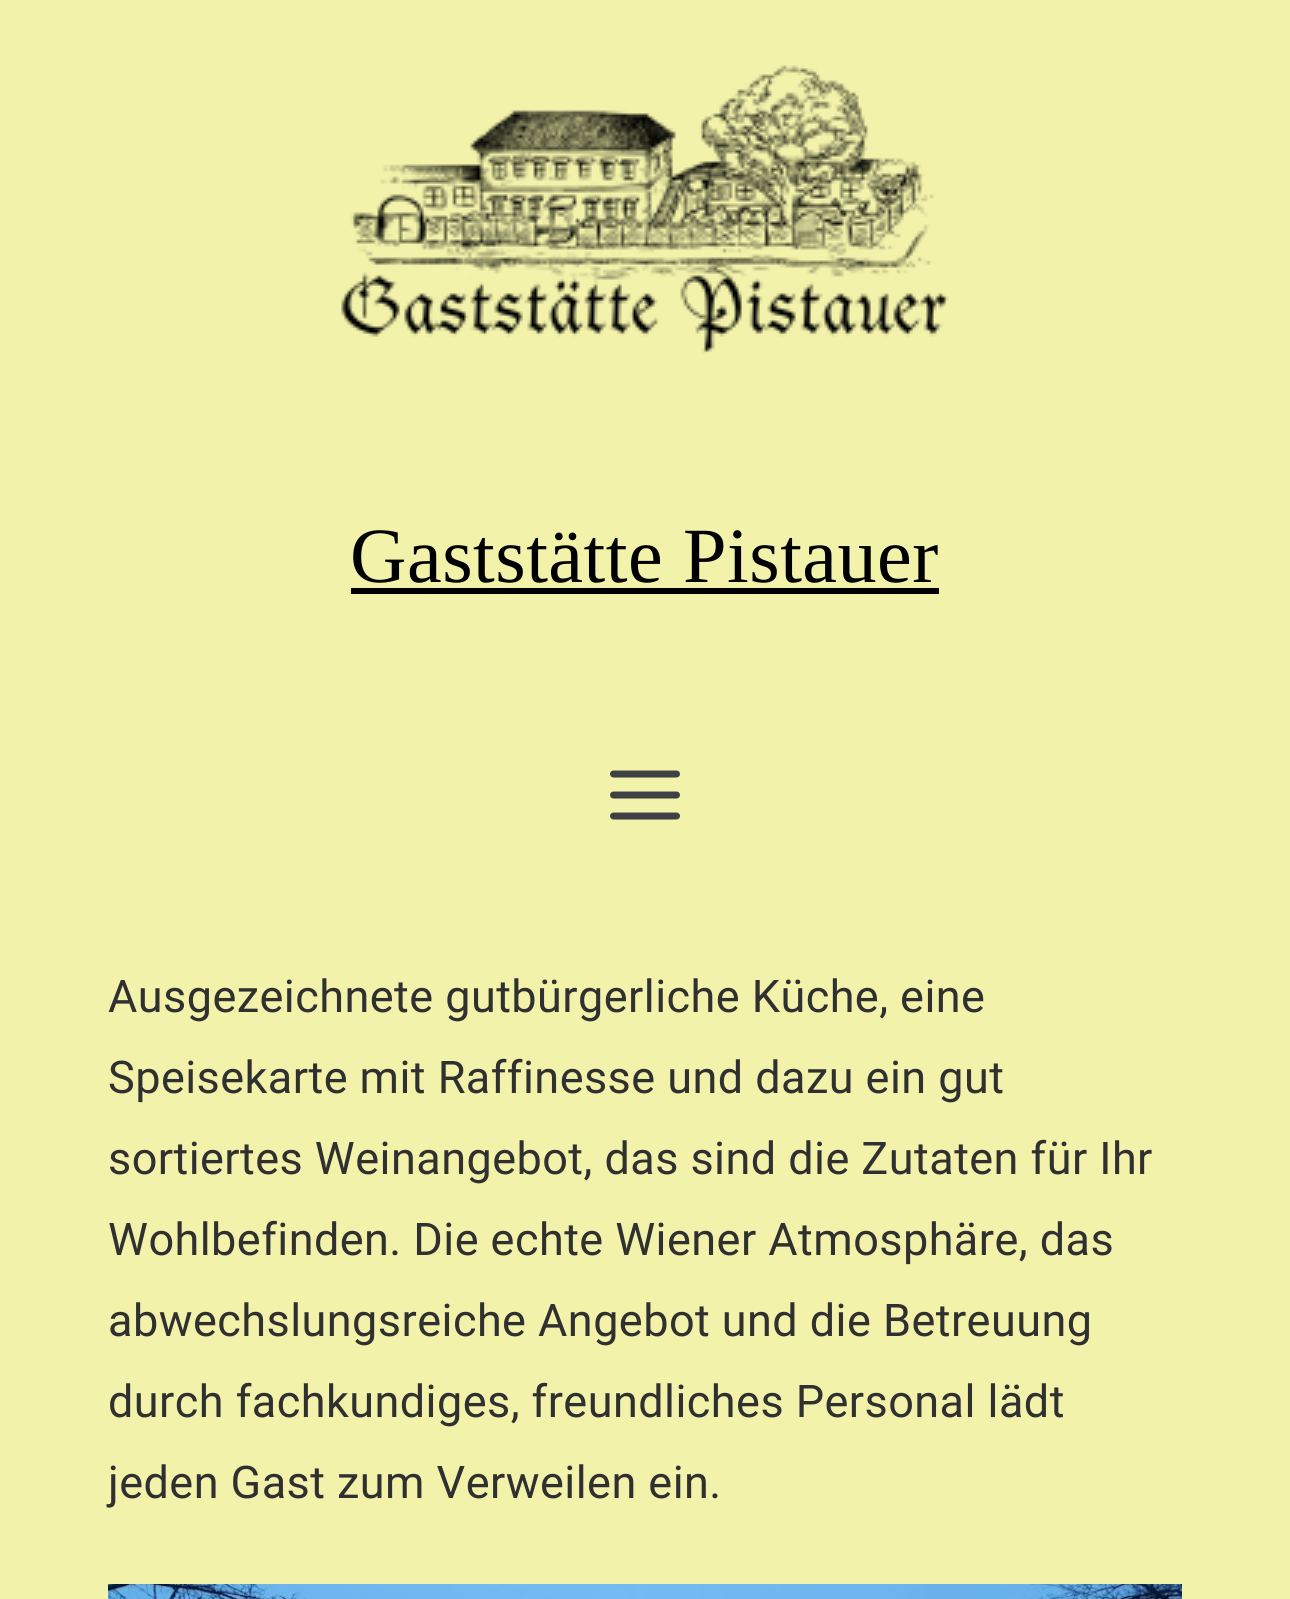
#include <cairo/cairo.h>
#include <math.h>
#include <stddef.h>

static cairo_t *cr;

static void use_color(int r, int g, int b) {
  cairo_set_source_rgb(cr, r / 255.0, g / 255.0, b / 255.0);
}

static void spaced_text(double x, double y, const char *s, double letter, double word) {
  cairo_move_to(cr, x, y);
  while (*s) {
    char ch[5] = {0};
    int n = 0;
    do ch[n++] = *s++; while ((*s & 0xC0) == 0x80);
    cairo_show_text(cr, ch);
    cairo_rel_move_to(cr, letter + word * (*ch == ' '), 0);
  }
}

static void box(double x, double y, double w, double h, int r, int g, int b) {
  use_color(r, g, b);
  cairo_rectangle(cr, x, y, w, h);
  cairo_fill(cr);
}

static void picture(const char *path, double x, double y, double w, double h) {
  cairo_surface_t *image = cairo_image_surface_create_from_png(path);
  cairo_save(cr);
  cairo_set_source_surface(cr, image, x, y);
  cairo_rectangle(cr, x, y, w, h);
  cairo_fill(cr);
  cairo_restore(cr);
  cairo_surface_destroy(image);
}

static void draw(void) {
  use_color(243, 242, 171);
  cairo_paint(cr);
  picture("img_01.png", 341, 65, 608, 289);
  box(351, 588, 588, 6, 0, 0, 0);
  picture("img_02.png", 610, 770, 70, 50);
  picture("img_03.png", 108, 1584, 1074, 15);
  cairo_select_font_face(cr, "Liberation Serif", CAIRO_FONT_SLANT_NORMAL, CAIRO_FONT_WEIGHT_NORMAL);
  cairo_set_font_size(cr, 78.25);
  spaced_text(350, 582, "Gaststätte Pistauer", 0.45, 0);
  cairo_select_font_face(cr, "Roboto", CAIRO_FONT_SLANT_NORMAL, CAIRO_FONT_WEIGHT_NORMAL);
  cairo_set_font_size(cr, 45);
  use_color(49, 48, 48);
  spaced_text(108, 1012, "Ausgezeichnete gutbürgerliche Küche, eine", 0.45, 0);
  spaced_text(108, 1093, "Speisekarte mit Raffinesse und dazu ein gut", 0.45, 0);
  spaced_text(108, 1174, "sortiertes Weinangebot, das sind die Zutaten für Ihr", 0.45, 0);
  spaced_text(108, 1255, "Wohlbefinden. Die echte Wiener Atmosphäre, das", 0.45, 0);
  spaced_text(108, 1336, "abwechslungsreiche Angebot und die Betreuung", 0.45, 0);
  spaced_text(108, 1417, "durch fachkundiges, freundliches Personal lädt", 0.45, 0);
  spaced_text(108, 1498, "jeden Gast zum Verweilen ein.", 0.45, 0);
}

int main(void) {
  cairo_surface_t *surface = cairo_image_surface_create(CAIRO_FORMAT_RGB24, 1290, 1599);
  cr = cairo_create(surface);
  cairo_font_options_t *options = cairo_font_options_create();
  cairo_font_options_set_hint_metrics(options, CAIRO_HINT_METRICS_OFF);
  cairo_font_options_set_hint_style(options, CAIRO_HINT_STYLE_NONE);
  cairo_set_font_options(cr, options);
  cairo_set_miter_limit(cr, 4);
  draw();
  cairo_surface_write_to_png(surface, "out.png");
  cairo_font_options_destroy(options);
  cairo_destroy(cr);
  cairo_surface_destroy(surface);
  return 0;
}
